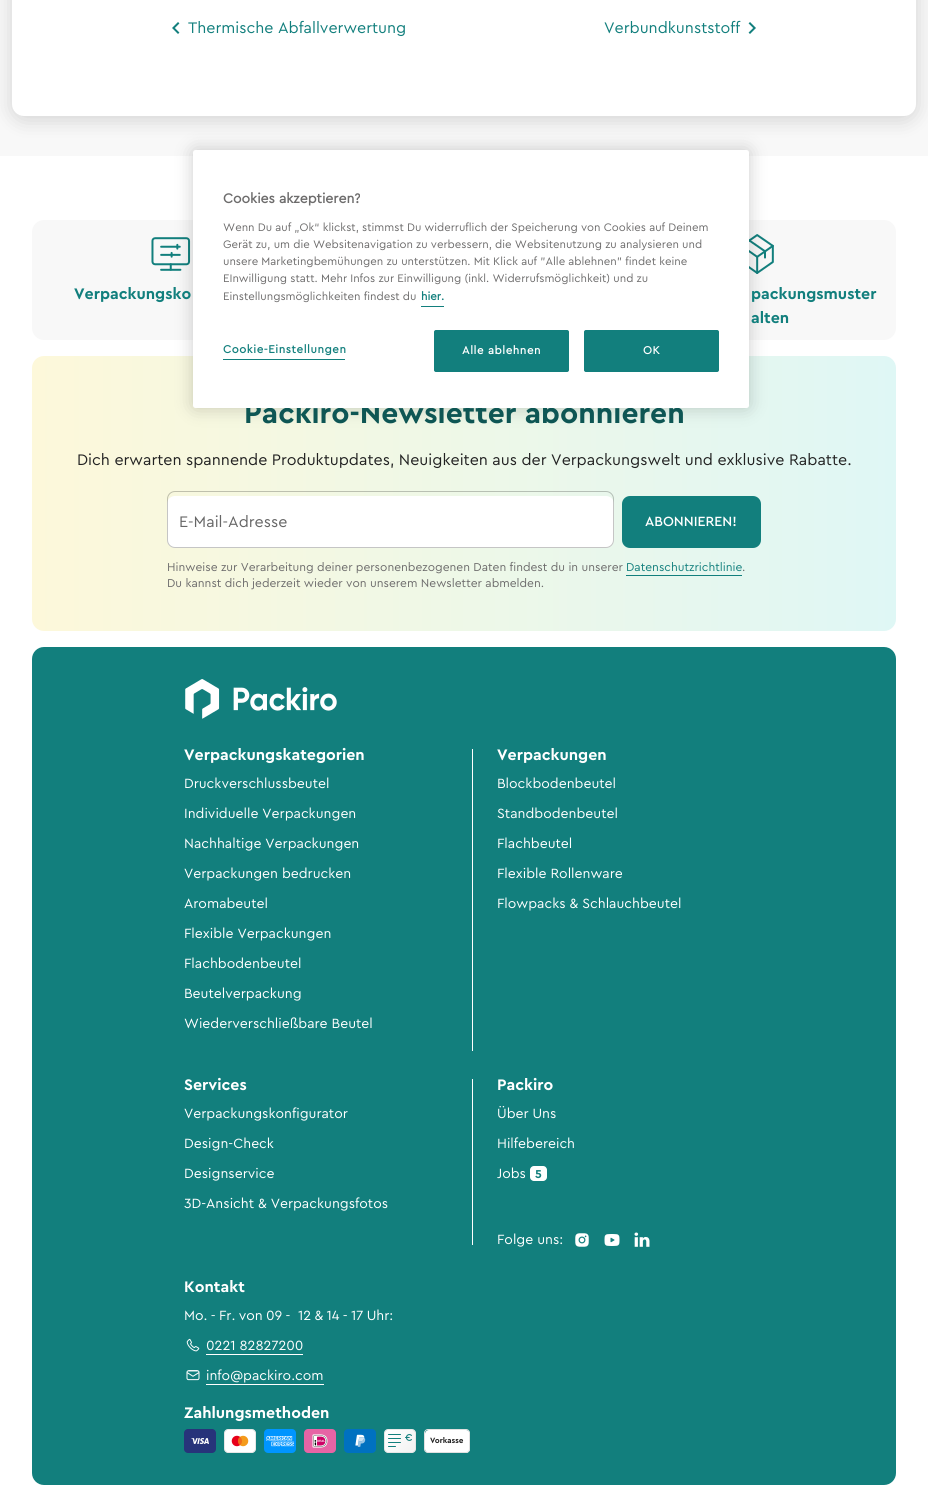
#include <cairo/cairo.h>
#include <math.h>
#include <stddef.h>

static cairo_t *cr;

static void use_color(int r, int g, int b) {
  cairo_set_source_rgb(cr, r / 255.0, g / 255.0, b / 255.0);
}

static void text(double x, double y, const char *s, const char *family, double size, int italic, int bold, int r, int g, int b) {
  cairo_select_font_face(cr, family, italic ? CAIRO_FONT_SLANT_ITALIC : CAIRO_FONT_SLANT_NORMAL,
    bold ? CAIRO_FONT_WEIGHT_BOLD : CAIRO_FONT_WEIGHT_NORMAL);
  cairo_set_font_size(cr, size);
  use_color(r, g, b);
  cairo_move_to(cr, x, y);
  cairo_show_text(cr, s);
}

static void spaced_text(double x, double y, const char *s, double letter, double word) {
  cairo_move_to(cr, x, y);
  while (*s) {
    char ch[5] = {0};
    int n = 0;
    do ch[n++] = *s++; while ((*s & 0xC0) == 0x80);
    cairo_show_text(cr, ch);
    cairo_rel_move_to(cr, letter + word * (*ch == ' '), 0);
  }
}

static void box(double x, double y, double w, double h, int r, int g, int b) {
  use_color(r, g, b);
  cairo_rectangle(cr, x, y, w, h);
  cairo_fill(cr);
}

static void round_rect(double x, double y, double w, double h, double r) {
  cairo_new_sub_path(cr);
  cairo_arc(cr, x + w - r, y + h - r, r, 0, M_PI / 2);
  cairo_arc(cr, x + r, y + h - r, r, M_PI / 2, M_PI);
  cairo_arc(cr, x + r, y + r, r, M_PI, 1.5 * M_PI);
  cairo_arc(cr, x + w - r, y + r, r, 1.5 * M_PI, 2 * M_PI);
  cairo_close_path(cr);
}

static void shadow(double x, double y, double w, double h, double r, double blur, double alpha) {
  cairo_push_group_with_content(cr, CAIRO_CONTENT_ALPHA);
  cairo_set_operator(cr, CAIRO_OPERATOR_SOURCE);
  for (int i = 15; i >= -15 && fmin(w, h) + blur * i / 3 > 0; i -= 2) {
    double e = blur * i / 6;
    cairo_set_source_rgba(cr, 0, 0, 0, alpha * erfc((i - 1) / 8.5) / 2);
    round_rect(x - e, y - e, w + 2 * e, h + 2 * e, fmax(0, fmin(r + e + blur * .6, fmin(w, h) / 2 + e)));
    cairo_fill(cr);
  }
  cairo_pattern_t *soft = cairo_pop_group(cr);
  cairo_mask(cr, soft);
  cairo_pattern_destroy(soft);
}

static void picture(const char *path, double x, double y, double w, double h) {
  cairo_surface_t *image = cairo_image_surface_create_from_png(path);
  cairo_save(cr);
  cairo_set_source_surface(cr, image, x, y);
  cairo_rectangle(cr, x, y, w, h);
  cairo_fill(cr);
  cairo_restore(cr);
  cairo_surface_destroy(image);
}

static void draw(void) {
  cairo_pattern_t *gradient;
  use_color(255, 255, 255);
  cairo_paint(cr);
  box(0, 0, 928, 156, 248, 248, 248);
  use_color(0, 0, 0);
  shadow(12, -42, 904, 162, 12, 10, 0.15);
  use_color(255, 255, 255);
  round_rect(12, -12, 904, 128, 12);
  cairo_fill(cr);
  picture("img_01.png", 172, 22, 8, 12);
  picture("img_02.png", 748, 22, 8, 12);
  use_color(248, 248, 248);
  round_rect(32, 220, 277, 120, 12);
  cairo_fill(cr);
  picture("img_03.png", 151, 237, 40, 34);
  round_rect(619, 220, 277, 120, 12);
  cairo_fill(cr);
  picture("img_04.png", 749, 234, 25, 40);
  gradient = cairo_pattern_create_linear(32, 494, 896, 494);
  cairo_pattern_add_color_stop_rgba(gradient, 0, 0.992, 0.973, 0.855, 1);
  cairo_pattern_add_color_stop_rgba(gradient, 1, 0.875, 0.969, 0.961, 1);
  cairo_set_source(cr, gradient);
  cairo_pattern_destroy(gradient);
  round_rect(32, 356, 864, 275, 12);
  cairo_fill(cr);
  use_color(255, 255, 255);
  round_rect(167, 496, 447, 52, 8);
  cairo_fill(cr);
  round_rect(167.5, 491.5, 446, 56, 7.5);
  cairo_set_source_rgba(cr, 0, 0, 0, 0.23);
  cairo_set_line_width(cr, 1);
  cairo_stroke(cr);
  use_color(18, 127, 125);
  round_rect(622, 496, 139, 52, 8);
  cairo_fill(cr);
  box(626, 575, 116, 1, 18, 127, 125);
  round_rect(32, 647, 864, 838, 12);
  cairo_fill(cr);
  picture("img_05.png", 185, 679, 152, 40);
  box(472, 749, 1, 302, 255, 255, 255);
  box(472, 1079, 1, 166, 255, 255, 255);
  round_rect(530, 1166, 17, 15, 4);
  cairo_fill(cr);
  picture("img_06.png", 575, 1233, 14, 14);
  picture("img_07.png", 604, 1234, 16, 12);
  picture("img_08.png", 634, 1232, 16, 15);
  picture("img_09.png", 186, 1338, 14, 14);
  box(206, 1354, 97, 1, 255, 255, 255);
  picture("img_10.png", 186, 1370, 14, 11);
  box(206, 1384, 118, 1, 255, 255, 255);
  picture("img_11.png", 184, 1429, 32, 24);
  picture("img_12.png", 224, 1429, 32, 24);
  picture("img_13.png", 264, 1429, 32, 24);
  picture("img_14.png", 304, 1429, 32, 24);
  picture("img_15.png", 344, 1429, 32, 24);
  picture("img_16.png", 384, 1429, 32, 24);
  picture("img_17.png", 424, 1429, 46, 24);
  use_color(0, 0, 0);
  shadow(193, 150, 556, 258, 2.5, 9, 0.2);
  text(188, 33, "Thermische Abfallverwertung", "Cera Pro", 16, 0, 0, 18, 127, 125);
  text(604, 33, "Verbundkunststoff", "Cera Pro", 16, 0, 0, 18, 127, 125);
  text(74, 299, "Verpackungsko", "Cera Pro", 16, 0, 1, 18, 127, 125);
  text(751, 299, "packungsmuster", "Cera Pro", 16, 0, 1, 18, 127, 125);
  text(751, 323, "alten", "Cera Pro", 16, 0, 1, 18, 127, 125);
  text(244, 423, "Packiro-Newsletter abonnieren", "Cera Pro", 30, 0, 1, 14, 86, 84);
  text(77, 465, "Dich erwarten spannende Produktupdates, Neuigkeiten aus der Verpackungswelt und exklusive Rabatte.", "Cera Pro", 16, 0, 0, 34, 34, 34);
  text(179, 527, "E-Mail-Adresse", "Cera Pro", 16, 0, 0, 102, 102, 102);
  text(645, 526, "ABONNIEREN!", "Cera Pro Medium", 14, 0, 0, 255, 255, 255);
  text(167, 571, "Hinweise zur Verarbeitung deiner personenbezogenen Daten findest du in unserer", "Cera Pro", 12, 0, 0, 109, 108, 108);
  text(626, 571, "Datenschutzrichtlinie", "Cera Pro", 12, 0, 0, 18, 127, 125);
  text(742, 571, ".", "Cera Pro", 12, 0, 0, 109, 108, 108);
  text(167, 587, "Du kannst dich jederzeit wieder von unserem Newsletter abmelden.", "Cera Pro", 12, 0, 0, 109, 108, 108);
  text(184, 760, "Verpackungskategorien", "Cera Pro", 16, 0, 1, 255, 255, 255);
  text(184, 788, "Druckverschlussbeutel", "Cera Pro", 14, 0, 0, 255, 255, 255);
  text(184, 818, "Individuelle Verpackungen", "Cera Pro", 14, 0, 0, 255, 255, 255);
  text(184, 848, "Nachhaltige Verpackungen", "Cera Pro", 14, 0, 0, 255, 255, 255);
  text(184, 878, "Verpackungen bedrucken", "Cera Pro", 14, 0, 0, 255, 255, 255);
  text(184, 908, "Aromabeutel", "Cera Pro", 14, 0, 0, 255, 255, 255);
  text(184, 938, "Flexible Verpackungen", "Cera Pro", 14, 0, 0, 255, 255, 255);
  text(184, 968, "Flachbodenbeutel", "Cera Pro", 14, 0, 0, 255, 255, 255);
  text(184, 998, "Beutelverpackung", "Cera Pro", 14, 0, 0, 255, 255, 255);
  text(184, 1028, "Wiederverschließbare Beutel", "Cera Pro", 14, 0, 0, 255, 255, 255);
  text(497, 760, "Verpackungen", "Cera Pro", 16, 0, 1, 255, 255, 255);
  text(497, 788, "Blockbodenbeutel", "Cera Pro", 14, 0, 0, 255, 255, 255);
  text(497, 818, "Standbodenbeutel", "Cera Pro", 14, 0, 0, 255, 255, 255);
  text(497, 848, "Flachbeutel", "Cera Pro", 14, 0, 0, 255, 255, 255);
  text(497, 878, "Flexible Rollenware", "Cera Pro", 14, 0, 0, 255, 255, 255);
  text(497, 908, "Flowpacks & Schlauchbeutel", "Cera Pro", 14, 0, 0, 255, 255, 255);
  text(184, 1090, "Services", "Cera Pro", 16, 0, 1, 255, 255, 255);
  text(184, 1118, "Verpackungskonfigurator", "Cera Pro", 14, 0, 0, 255, 255, 255);
  text(184, 1148, "Design-Check", "Cera Pro", 14, 0, 0, 255, 255, 255);
  text(184, 1178, "Designservice", "Cera Pro", 14, 0, 0, 255, 255, 255);
  text(184, 1208, "3D-Ansicht & Verpackungsfotos", "Cera Pro", 14, 0, 0, 255, 255, 255);
  text(497, 1090, "Packiro", "Cera Pro", 16, 0, 1, 255, 255, 255);
  text(497, 1118, "Über Uns", "Cera Pro", 14, 0, 0, 255, 255, 255);
  text(497, 1148, "Hilfebereich", "Cera Pro", 14, 0, 0, 255, 255, 255);
  text(497, 1178, "Jobs", "Cera Pro", 14, 0, 0, 255, 255, 255);
  text(535, 1178, "5", "Cera Pro", 12, 0, 1, 18, 127, 125);
  text(497, 1244, "Folge uns:", "Cera Pro", 14, 0, 0, 255, 255, 255);
  text(184, 1292, "Kontakt", "Cera Pro", 16, 0, 1, 255, 255, 255);
  cairo_select_font_face(cr, "Cera Pro", CAIRO_FONT_SLANT_NORMAL, CAIRO_FONT_WEIGHT_NORMAL);
  cairo_set_font_size(cr, 14);
  spaced_text(184, 1320, "Mo. - Fr. von 09 -", 0, -0.6);
  spaced_text(298, 1320, "12 & 14 - 17 Uhr:", 0, -0.6);
  text(206, 1350, "0221 82827200", "Cera Pro", 14, 0, 0, 255, 255, 255);
  text(206, 1380, "info@packiro.com", "Cera Pro", 14, 0, 0, 255, 255, 255);
  text(184, 1418, "Zahlungsmethoden", "Cera Pro", 16, 0, 1, 255, 255, 255);
  round_rect(193, 150, 556, 258, 2.5);
  cairo_fill(cr);
  text(223, 203, "Cookies akzeptieren?", "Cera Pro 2", 14, 0, 1, 109, 108, 108);
  text(223, 231, "Wenn Du auf „Ok“ klickst, stimmst Du widerruflich der Speicherung von Cookies auf Deinem", "Cera Pro", 11.4, 0, 0, 109, 108, 108);
  text(223, 248, "Gerät zu, um die Websitenavigation zu verbessern, die Websitenutzung zu analysieren und", "Cera Pro", 11.4, 0, 0, 109, 108, 108);
  text(223, 265, "unsere Marketingbemühungen zu unterstützen. Mit Klick auf \"Alle ablehnen\" findet keine", "Cera Pro", 11.4, 0, 0, 109, 108, 108);
  text(223, 282, "EInwilligung statt. Mehr Infos zur Einwilligung (inkl. Widerrufsmöglichkeit) und zu", "Cera Pro", 11.4, 0, 0, 109, 108, 108);
  text(223, 300, "Einstellungsmöglichkeiten findest du", "Cera Pro", 11.4, 0, 0, 109, 108, 108);
  text(421, 300, "hier.", "Cera Pro 2", 11.4, 0, 1, 18, 127, 125);
  box(421, 306, 23, 1, 18, 127, 125);
  spaced_text(223, 353, "Cookie-Einstellungen", 0.6, 0);
  box(223, 359, 122, 1, 18, 127, 125);
  round_rect(434.5, 330.5, 134, 41, 1.5);
  cairo_fill_preserve(cr);
  cairo_stroke(cr);
  use_color(255, 255, 255);
  spaced_text(462, 354, "Alle ablehnen", 0.6, 0);
  use_color(18, 127, 125);
  round_rect(584.5, 330.5, 134, 41, 1.5);
  cairo_fill_preserve(cr);
  cairo_stroke(cr);
  use_color(255, 255, 255);
  spaced_text(643, 354, "OK", 0.6, 0);
}

int main(void) {
  cairo_surface_t *surface = cairo_image_surface_create(CAIRO_FORMAT_RGB24, 928, 1497);
  cr = cairo_create(surface);
  cairo_font_options_t *options = cairo_font_options_create();
  cairo_font_options_set_hint_metrics(options, CAIRO_HINT_METRICS_OFF);
  cairo_font_options_set_hint_style(options, CAIRO_HINT_STYLE_NONE);
  cairo_set_font_options(cr, options);
  cairo_set_miter_limit(cr, 4);
  draw();
  cairo_surface_write_to_png(surface, "out.png");
  cairo_font_options_destroy(options);
  cairo_destroy(cr);
  cairo_surface_destroy(surface);
  return 0;
}
